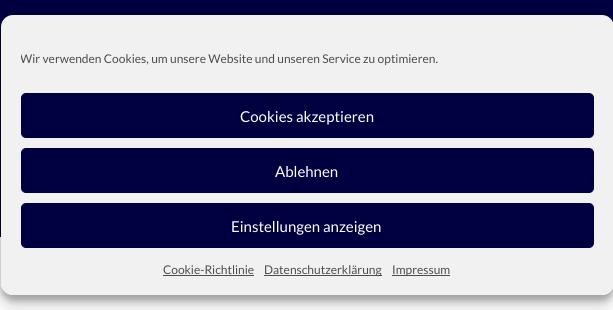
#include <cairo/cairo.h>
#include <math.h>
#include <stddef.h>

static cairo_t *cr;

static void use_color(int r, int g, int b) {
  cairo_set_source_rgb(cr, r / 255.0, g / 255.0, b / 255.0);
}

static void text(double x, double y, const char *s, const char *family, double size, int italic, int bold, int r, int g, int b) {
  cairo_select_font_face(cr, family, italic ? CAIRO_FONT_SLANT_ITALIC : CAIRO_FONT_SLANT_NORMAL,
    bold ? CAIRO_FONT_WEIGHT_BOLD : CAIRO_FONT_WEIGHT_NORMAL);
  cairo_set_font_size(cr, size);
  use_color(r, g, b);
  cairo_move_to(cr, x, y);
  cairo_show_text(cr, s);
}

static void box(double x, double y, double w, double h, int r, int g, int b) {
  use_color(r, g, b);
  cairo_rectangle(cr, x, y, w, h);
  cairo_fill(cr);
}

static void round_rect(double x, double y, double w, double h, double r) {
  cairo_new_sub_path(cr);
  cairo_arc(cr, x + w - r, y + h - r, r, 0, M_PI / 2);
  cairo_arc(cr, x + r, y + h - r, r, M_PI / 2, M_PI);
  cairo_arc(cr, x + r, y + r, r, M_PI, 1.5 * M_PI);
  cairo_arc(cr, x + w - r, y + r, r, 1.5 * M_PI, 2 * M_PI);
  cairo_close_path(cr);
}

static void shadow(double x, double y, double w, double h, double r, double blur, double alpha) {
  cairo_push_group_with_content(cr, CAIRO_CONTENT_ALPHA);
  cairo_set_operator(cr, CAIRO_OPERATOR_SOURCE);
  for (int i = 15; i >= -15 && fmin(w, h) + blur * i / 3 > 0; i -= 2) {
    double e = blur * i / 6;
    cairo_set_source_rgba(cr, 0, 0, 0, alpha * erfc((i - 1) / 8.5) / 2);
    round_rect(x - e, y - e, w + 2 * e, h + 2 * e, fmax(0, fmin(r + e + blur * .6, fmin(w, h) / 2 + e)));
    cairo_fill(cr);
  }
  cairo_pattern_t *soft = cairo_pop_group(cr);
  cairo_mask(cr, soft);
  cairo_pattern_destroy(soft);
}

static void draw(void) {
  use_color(255, 255, 255);
  cairo_paint(cr);
  box(0, 0, 613, 203, 0, 0, 64);
  box(0, 203, 1, 34, 0, 0, 64);
  cairo_save(cr);
  cairo_set_fill_rule(cr, CAIRO_FILL_RULE_EVEN_ODD);
  cairo_new_path(cr);
  cairo_move_to(cr, 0, 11);
  cairo_line_to(cr, 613, 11);
  cairo_line_to(cr, 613, 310);
  cairo_line_to(cr, 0, 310);
  cairo_close_path(cr);
  cairo_move_to(cr, 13, 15);
  cairo_line_to(cr, 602, 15);
  cairo_curve_to(cr, 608.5, 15, 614, 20.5, 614, 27);
  cairo_line_to(cr, 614, 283);
  cairo_curve_to(cr, 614, 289.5, 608.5, 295, 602, 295);
  cairo_line_to(cr, 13, 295);
  cairo_curve_to(cr, 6.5, 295, 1, 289.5, 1, 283);
  cairo_line_to(cr, 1, 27);
  cairo_curve_to(cr, 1, 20.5, 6.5, 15, 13, 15);
  cairo_close_path(cr);
  cairo_clip(cr);
  use_color(0, 0, 0);
  shadow(1, 21, 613, 280, 12, 3, 0.23);
  cairo_restore(cr);
  cairo_save(cr);
  cairo_set_fill_rule(cr, CAIRO_FILL_RULE_EVEN_ODD);
  cairo_new_path(cr);
  cairo_move_to(cr, 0, 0);
  cairo_line_to(cr, 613, 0);
  cairo_line_to(cr, 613, 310);
  cairo_line_to(cr, 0, 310);
  cairo_close_path(cr);
  cairo_move_to(cr, 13, 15);
  cairo_line_to(cr, 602, 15);
  cairo_curve_to(cr, 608.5, 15, 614, 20.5, 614, 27);
  cairo_line_to(cr, 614, 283);
  cairo_curve_to(cr, 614, 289.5, 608.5, 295, 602, 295);
  cairo_line_to(cr, 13, 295);
  cairo_curve_to(cr, 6.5, 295, 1, 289.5, 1, 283);
  cairo_line_to(cr, 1, 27);
  cairo_curve_to(cr, 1, 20.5, 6.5, 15, 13, 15);
  cairo_close_path(cr);
  cairo_clip(cr);
  use_color(0, 0, 0);
  shadow(1, 25, 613, 280, 12, 10, 0.19);
  cairo_restore(cr);
  use_color(241, 241, 241);
  round_rect(1, 15, 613, 280, 12);
  cairo_fill(cr);
  use_color(0, 0, 64);
  round_rect(21.5, 93.5, 572, 44, 4.5);
  cairo_fill_preserve(cr);
  cairo_set_line_width(cr, 1);
  cairo_stroke(cr);
  round_rect(21.5, 148.5, 572, 44, 4.5);
  cairo_fill_preserve(cr);
  cairo_stroke(cr);
  round_rect(21.5, 203.5, 572, 44, 4.5);
  cairo_fill_preserve(cr);
  cairo_stroke(cr);
  box(163, 275, 91, 1, 76, 76, 76);
  box(264, 275, 118, 1, 76, 76, 76);
  box(392, 275, 58, 1, 76, 76, 76);
  cairo_save(cr);
  cairo_rectangle(cr, 21, 50, 573, 23);
  cairo_clip(cr);
  text(20, 63, "Wir verwenden Cookies, um unsere Website und unseren Service zu optimieren.", "Lato", 12, 0, 0, 76, 76, 76);
  cairo_restore(cr);
  text(240, 122, "Cookies akzeptieren", "Lato", 15, 0, 0, 255, 255, 255);
  text(275, 177, "Ablehnen", "Lato", 15, 0, 0, 255, 255, 255);
  text(231, 232, "Einstellungen anzeigen", "Lato", 15, 0, 0, 255, 255, 255);
  text(163, 274, "Cookie-Richtlinie", "Lato", 12, 0, 0, 76, 76, 76);
  text(264, 274, "Datenschutzerklärung", "Lato", 12, 0, 0, 76, 76, 76);
  text(392, 274, "Impressum", "Lato", 12, 0, 0, 76, 76, 76);
}

int main(void) {
  cairo_surface_t *surface = cairo_image_surface_create(CAIRO_FORMAT_RGB24, 613, 310);
  cr = cairo_create(surface);
  cairo_font_options_t *options = cairo_font_options_create();
  cairo_font_options_set_hint_metrics(options, CAIRO_HINT_METRICS_OFF);
  cairo_font_options_set_hint_style(options, CAIRO_HINT_STYLE_NONE);
  cairo_set_font_options(cr, options);
  cairo_set_miter_limit(cr, 4);
  draw();
  cairo_surface_write_to_png(surface, "out.png");
  cairo_font_options_destroy(options);
  cairo_destroy(cr);
  cairo_surface_destroy(surface);
  return 0;
}
